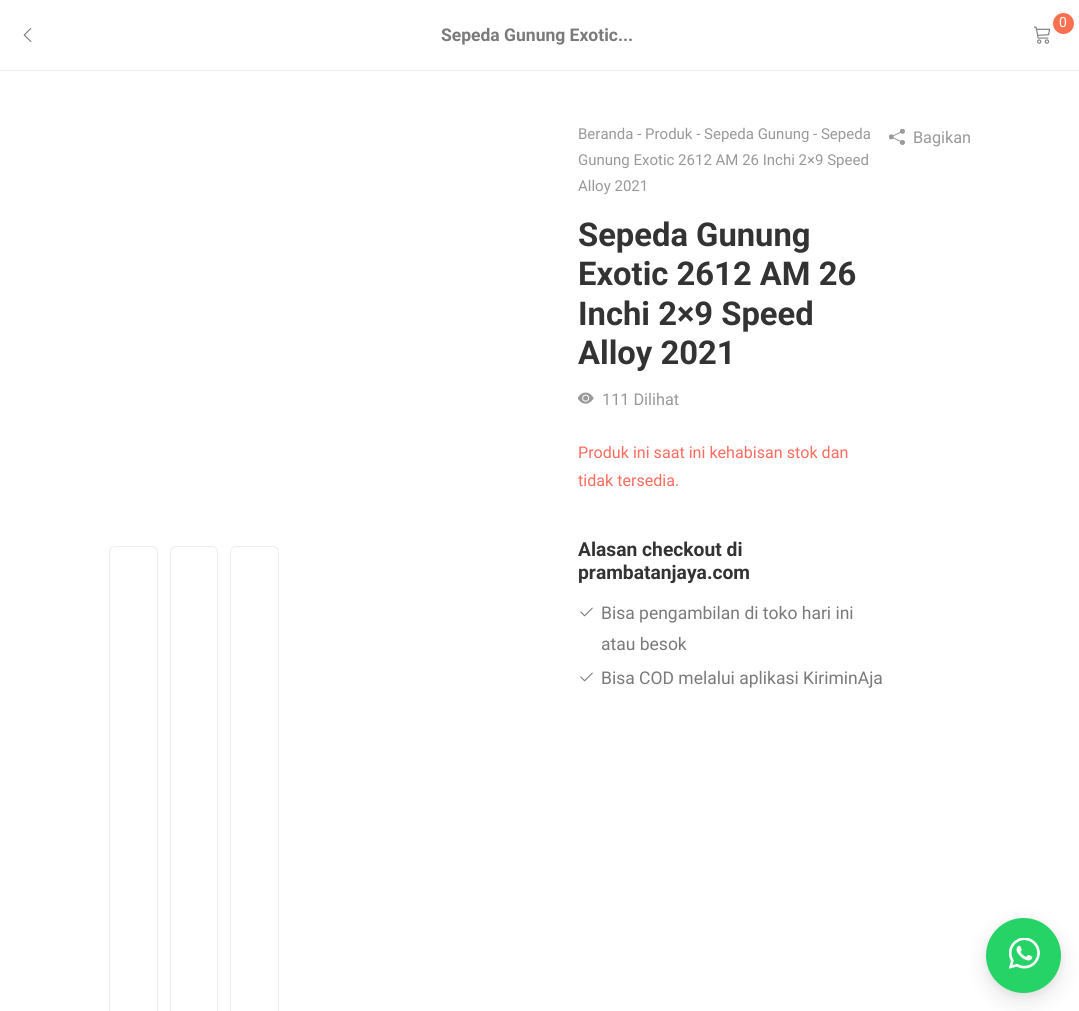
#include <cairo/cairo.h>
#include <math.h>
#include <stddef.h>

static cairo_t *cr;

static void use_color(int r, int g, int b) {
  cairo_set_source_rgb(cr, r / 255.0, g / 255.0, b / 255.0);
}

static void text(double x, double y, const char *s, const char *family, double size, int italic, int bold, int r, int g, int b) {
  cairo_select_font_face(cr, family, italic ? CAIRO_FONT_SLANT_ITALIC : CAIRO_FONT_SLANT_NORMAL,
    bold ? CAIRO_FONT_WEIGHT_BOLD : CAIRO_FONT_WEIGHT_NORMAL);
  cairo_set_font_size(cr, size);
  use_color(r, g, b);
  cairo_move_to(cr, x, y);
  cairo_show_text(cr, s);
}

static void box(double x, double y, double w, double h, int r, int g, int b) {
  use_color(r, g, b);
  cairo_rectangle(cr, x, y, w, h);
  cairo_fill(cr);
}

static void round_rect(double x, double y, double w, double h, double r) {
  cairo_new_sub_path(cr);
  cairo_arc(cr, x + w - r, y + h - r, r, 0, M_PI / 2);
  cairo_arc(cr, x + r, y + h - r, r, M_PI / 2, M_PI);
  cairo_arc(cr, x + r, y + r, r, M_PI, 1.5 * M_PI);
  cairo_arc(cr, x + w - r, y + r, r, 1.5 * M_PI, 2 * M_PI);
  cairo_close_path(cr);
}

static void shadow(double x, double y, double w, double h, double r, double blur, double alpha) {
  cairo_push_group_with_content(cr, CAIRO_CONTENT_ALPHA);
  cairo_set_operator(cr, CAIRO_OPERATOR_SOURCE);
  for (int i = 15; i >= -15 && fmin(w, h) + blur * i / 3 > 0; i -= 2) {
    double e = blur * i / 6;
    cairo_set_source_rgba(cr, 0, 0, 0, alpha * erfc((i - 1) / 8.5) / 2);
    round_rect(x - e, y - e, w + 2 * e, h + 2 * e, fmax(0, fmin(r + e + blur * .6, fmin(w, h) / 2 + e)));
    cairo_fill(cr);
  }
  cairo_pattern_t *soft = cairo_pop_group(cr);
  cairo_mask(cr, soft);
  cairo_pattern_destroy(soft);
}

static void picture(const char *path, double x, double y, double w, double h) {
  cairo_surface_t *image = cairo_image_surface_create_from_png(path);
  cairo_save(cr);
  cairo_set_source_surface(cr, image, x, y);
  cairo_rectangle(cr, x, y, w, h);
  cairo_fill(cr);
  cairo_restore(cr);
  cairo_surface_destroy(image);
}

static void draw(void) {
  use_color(255, 255, 255);
  cairo_paint(cr);
  box(0, 70, 1079, 1, 237, 237, 237);
  use_color(253, 112, 79);
  cairo_arc(cr, 1063.5, 23.5, 10.5, 0, 2 * M_PI);
  cairo_fill(cr);
  picture("img_01.png", 1034, 26, 17, 18);
  picture("img_02.png", 23, 28, 9, 14);
  picture("img_03.png", 889, 129, 16, 16);
  picture("img_04.png", 578, 392, 16, 12);
  picture("img_05.png", 580, 607, 13, 10);
  picture("img_05.png", 580, 672, 13, 10);
  round_rect(109.5, 546.5, 48, 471, 5.5);
  use_color(237, 237, 237);
  cairo_set_line_width(cr, 1);
  cairo_stroke(cr);
  round_rect(170.5, 546.5, 47, 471, 5.5);
  cairo_stroke(cr);
  round_rect(230.5, 546.5, 48, 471, 5.5);
  cairo_stroke(cr);
  use_color(0, 0, 0);
  shadow(986, 926, 75, 75, 37.5, 10.5, 0.1);
  shadow(986, 920, 75, 75, 37.5, 3.5, 0.05);
  use_color(37, 211, 102);
  cairo_arc(cr, 1023.5, 955.5, 37.5, 0, 2 * M_PI);
  cairo_fill(cr);
  picture("img_06.png", 1009, 938, 31, 31);
  text(1059, 27, "0", "Roboto", 14, 0, 0, 255, 255, 255);
  text(441, 41, "Sepeda Gunung Exotic...", "Roboto", 17.5, 0, 1, 122, 122, 122);
  text(578, 139, "Beranda - Produk - Sepeda Gunung - Sepeda", "Roboto", 15, 0, 0, 153, 153, 153);
  text(578, 165, "Gunung Exotic 2612 AM 26 Inchi 2×9 Speed", "Roboto", 15, 0, 0, 153, 153, 153);
  text(578, 191, "Alloy 2021", "Roboto", 15, 0, 0, 153, 153, 153);
  text(913, 143, "Bagikan", "Roboto", 16.25, 0, 0, 153, 153, 153);
  text(578, 246, "Sepeda Gunung", "Roboto", 32.75, 0, 1, 51, 51, 51);
  text(578, 285, "Exotic 2612 AM 26", "Roboto", 32.75, 0, 1, 51, 51, 51);
  text(578, 325, "Inchi 2×9 Speed", "Roboto", 32.75, 0, 1, 51, 51, 51);
  text(578, 364, "Alloy 2021", "Roboto", 32.75, 0, 1, 51, 51, 51);
  text(602, 405, "111 Dilihat", "Roboto", 16.25, 0, 0, 153, 153, 153);
  text(578, 458, "Produk ini saat ini kehabisan stok dan", "Roboto", 16.1, 0, 0, 255, 108, 95);
  text(578, 486, "tidak tersedia.", "Roboto", 16.1, 0, 0, 255, 108, 95);
  text(578, 556, "Alasan checkout di", "Roboto", 19.25, 0, 1, 51, 51, 51);
  text(578, 579, "prambatanjaya.com", "Roboto", 19.25, 0, 1, 51, 51, 51);
  text(601, 619, "Bisa pengambilan di toko hari ini", "Roboto", 17.5, 0, 0, 122, 122, 122);
  text(601, 650, "atau besok", "Roboto", 17.5, 0, 0, 122, 122, 122);
  text(601, 684, "Bisa COD melalui aplikasi KiriminAja", "Roboto", 17.5, 0, 0, 122, 122, 122);
}

int main(void) {
  cairo_surface_t *surface = cairo_image_surface_create(CAIRO_FORMAT_RGB24, 1079, 1011);
  cr = cairo_create(surface);
  cairo_font_options_t *options = cairo_font_options_create();
  cairo_font_options_set_hint_metrics(options, CAIRO_HINT_METRICS_OFF);
  cairo_font_options_set_hint_style(options, CAIRO_HINT_STYLE_NONE);
  cairo_set_font_options(cr, options);
  cairo_set_miter_limit(cr, 4);
  draw();
  cairo_surface_write_to_png(surface, "out.png");
  cairo_font_options_destroy(options);
  cairo_destroy(cr);
  cairo_surface_destroy(surface);
  return 0;
}
